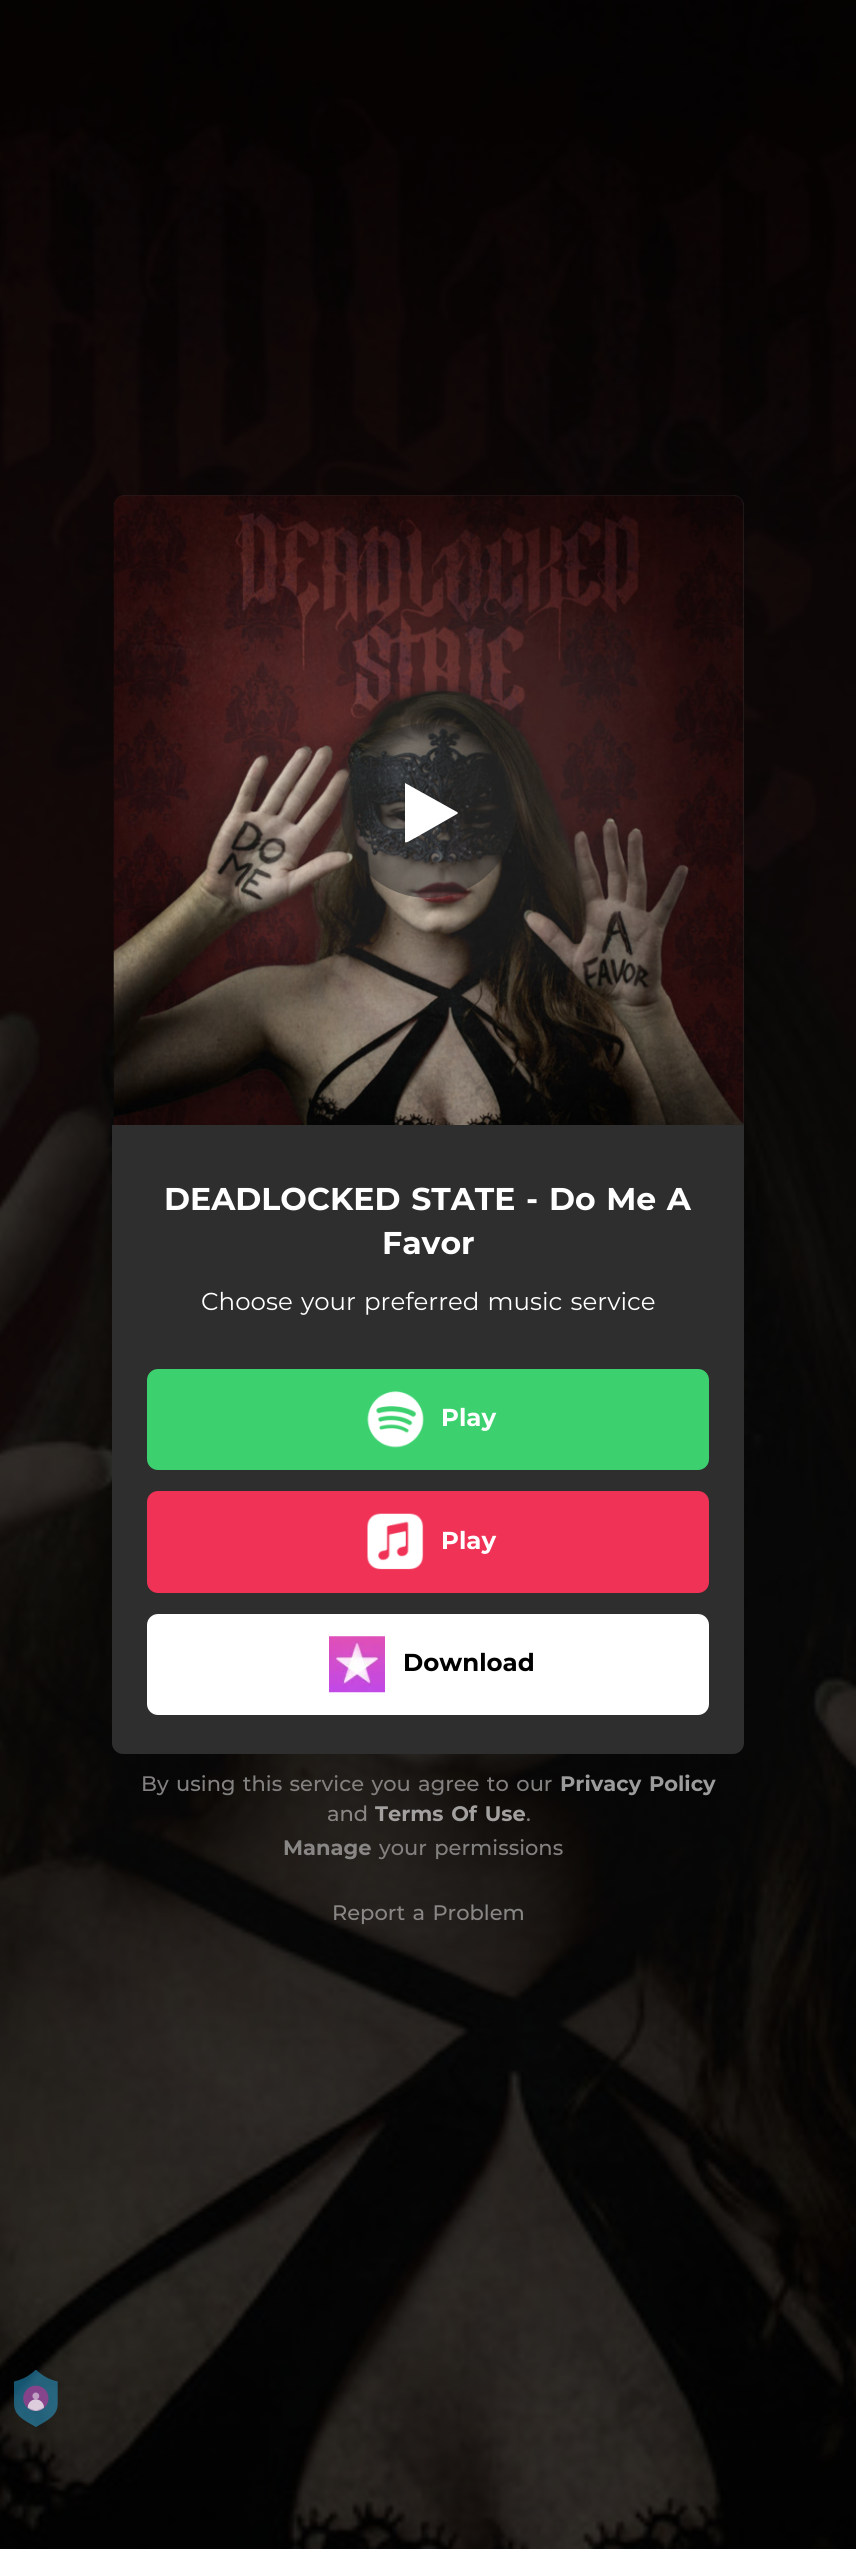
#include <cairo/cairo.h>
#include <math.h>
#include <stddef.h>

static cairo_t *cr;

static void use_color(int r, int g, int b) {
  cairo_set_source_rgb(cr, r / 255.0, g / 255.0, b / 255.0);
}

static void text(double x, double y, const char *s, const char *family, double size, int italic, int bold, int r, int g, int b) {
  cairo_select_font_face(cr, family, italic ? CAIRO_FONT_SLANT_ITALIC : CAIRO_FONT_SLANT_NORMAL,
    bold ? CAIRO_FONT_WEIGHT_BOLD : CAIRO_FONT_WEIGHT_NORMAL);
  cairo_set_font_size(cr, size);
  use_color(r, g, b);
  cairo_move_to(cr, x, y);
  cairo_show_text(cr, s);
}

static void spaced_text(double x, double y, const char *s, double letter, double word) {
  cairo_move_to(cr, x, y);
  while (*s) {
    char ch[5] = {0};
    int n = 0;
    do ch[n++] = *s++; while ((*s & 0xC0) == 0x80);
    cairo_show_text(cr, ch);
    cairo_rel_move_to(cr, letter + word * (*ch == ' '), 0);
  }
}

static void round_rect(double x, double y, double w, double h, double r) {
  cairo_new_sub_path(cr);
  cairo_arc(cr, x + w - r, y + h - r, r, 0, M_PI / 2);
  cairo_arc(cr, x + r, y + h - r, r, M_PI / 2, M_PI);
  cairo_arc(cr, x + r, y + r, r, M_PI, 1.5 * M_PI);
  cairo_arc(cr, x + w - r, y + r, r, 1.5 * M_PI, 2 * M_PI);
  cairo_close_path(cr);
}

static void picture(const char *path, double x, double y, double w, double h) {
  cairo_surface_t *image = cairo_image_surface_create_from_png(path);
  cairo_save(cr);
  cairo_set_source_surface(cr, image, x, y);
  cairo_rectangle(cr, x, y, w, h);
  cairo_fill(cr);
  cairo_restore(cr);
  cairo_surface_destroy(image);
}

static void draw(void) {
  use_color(255, 255, 255);
  cairo_paint(cr);
  picture("img_01.png", 0, 0, 856, 2549);
  use_color(47, 47, 47);
  cairo_new_path(cr);
  cairo_move_to(cr, 125, 495);
  cairo_line_to(cr, 733, 495);
  cairo_curve_to(cr, 739, 495, 744, 500, 744, 506);
  cairo_line_to(cr, 744, 1125);
  cairo_line_to(cr, 114, 1125);
  cairo_line_to(cr, 114, 506);
  cairo_curve_to(cr, 114, 500, 119, 495, 125, 495);
  cairo_close_path(cr);
  cairo_fill(cr);
  picture("img_02.png", 113, 495, 631, 630);
  cairo_set_source_rgba(cr, 0.157, 0.157, 0.157, 0.5);
  cairo_arc(cr, 428.5, 810.5, 87.5, 0, 2 * M_PI);
  cairo_fill(cr);
  use_color(255, 255, 255);
  cairo_new_path(cr);
  cairo_move_to(cr, 457, 814);
  cairo_line_to(cr, 415, 838);
  cairo_curve_to(cr, 414, 838, 406, 844, 405, 842);
  cairo_line_to(cr, 405, 784);
  cairo_line_to(cr, 405, 783);
  cairo_line_to(cr, 457, 812);
  cairo_line_to(cr, 458, 813);
  cairo_line_to(cr, 457, 814);
  cairo_fill(cr);
  use_color(46, 46, 46);
  cairo_new_path(cr);
  cairo_move_to(cr, 112, 1125);
  cairo_line_to(cr, 744, 1125);
  cairo_line_to(cr, 744, 1743);
  cairo_curve_to(cr, 744, 1749, 739, 1754, 733, 1754);
  cairo_line_to(cr, 123, 1754);
  cairo_curve_to(cr, 117, 1754, 112, 1749, 112, 1743);
  cairo_close_path(cr);
  cairo_fill(cr);
  use_color(60, 209, 110);
  round_rect(147, 1369, 562, 101, 11);
  cairo_fill(cr);
  picture("img_03.png", 367, 1391, 57, 57);
  use_color(239, 50, 86);
  round_rect(147, 1491, 562, 102, 11);
  cairo_fill(cr);
  picture("img_04.png", 367, 1513, 57, 57);
  use_color(255, 255, 255);
  round_rect(147, 1614, 562, 101, 11);
  cairo_fill(cr);
  picture("img_05.png", 329, 1636, 56, 57);
  picture("img_06.png", 14, 2370, 44, 57);
  cairo_select_font_face(cr, "Montserrat", CAIRO_FONT_SLANT_NORMAL, CAIRO_FONT_WEIGHT_BOLD);
  cairo_set_font_size(cr, 31.5);
  spaced_text(164, 1210, "DEADLOCKED STATE - Do Me A", 0, 1.75);
  text(382, 1254, "Favor", "Montserrat", 31.5, 0, 1, 255, 255, 255);
  cairo_select_font_face(cr, "Montserrat", CAIRO_FONT_SLANT_NORMAL, CAIRO_FONT_WEIGHT_NORMAL);
  cairo_set_font_size(cr, 24.5);
  spaced_text(201, 1310, "Choose your preferred music service", 0, 1.75);
  text(441, 1426, "Play", "Montserrat", 24.5, 0, 1, 255, 255, 255);
  text(441, 1549, "Play", "Montserrat", 24.5, 0, 1, 255, 255, 255);
  text(403, 1671, "Download", "Montserrat", 24.5, 0, 1, 0, 0, 0);
  cairo_select_font_face(cr, "Montserrat Medium", CAIRO_FONT_SLANT_NORMAL, CAIRO_FONT_WEIGHT_NORMAL);
  cairo_set_font_size(cr, 21);
  use_color(130, 129, 128);
  spaced_text(141, 1791, "By using this service you agree to our", 0, 1.75);
  cairo_select_font_face(cr, "Montserrat", CAIRO_FONT_SLANT_NORMAL, CAIRO_FONT_WEIGHT_BOLD);
  use_color(156, 156, 156);
  spaced_text(560, 1791, "Privacy Policy", 0, 1.75);
  text(327, 1821, "and", "Montserrat Medium", 21, 0, 0, 136, 135, 133);
  cairo_select_font_face(cr, "Montserrat", CAIRO_FONT_SLANT_NORMAL, CAIRO_FONT_WEIGHT_BOLD);
  use_color(163, 161, 160);
  spaced_text(375, 1821, "Terms Of Use", 0, 1.75);
  text(526, 1821, ".", "Montserrat Medium", 21, 0, 0, 130, 129, 128);
  text(283, 1855, "Manage", "Montserrat", 21, 0, 1, 136, 135, 133);
  cairo_select_font_face(cr, "Montserrat Medium", CAIRO_FONT_SLANT_NORMAL, CAIRO_FONT_WEIGHT_NORMAL);
  use_color(130, 129, 128);
  spaced_text(379, 1855, "your permissions", 0, 1.75);
  use_color(136, 135, 133);
  spaced_text(332, 1920, "Report a Problem", 0, 1.75);
}

int main(void) {
  cairo_surface_t *surface = cairo_image_surface_create(CAIRO_FORMAT_RGB24, 856, 2549);
  cr = cairo_create(surface);
  cairo_font_options_t *options = cairo_font_options_create();
  cairo_font_options_set_hint_metrics(options, CAIRO_HINT_METRICS_OFF);
  cairo_font_options_set_hint_style(options, CAIRO_HINT_STYLE_NONE);
  cairo_set_font_options(cr, options);
  cairo_set_miter_limit(cr, 4);
  draw();
  cairo_surface_write_to_png(surface, "out.png");
  cairo_font_options_destroy(options);
  cairo_destroy(cr);
  cairo_surface_destroy(surface);
  return 0;
}
